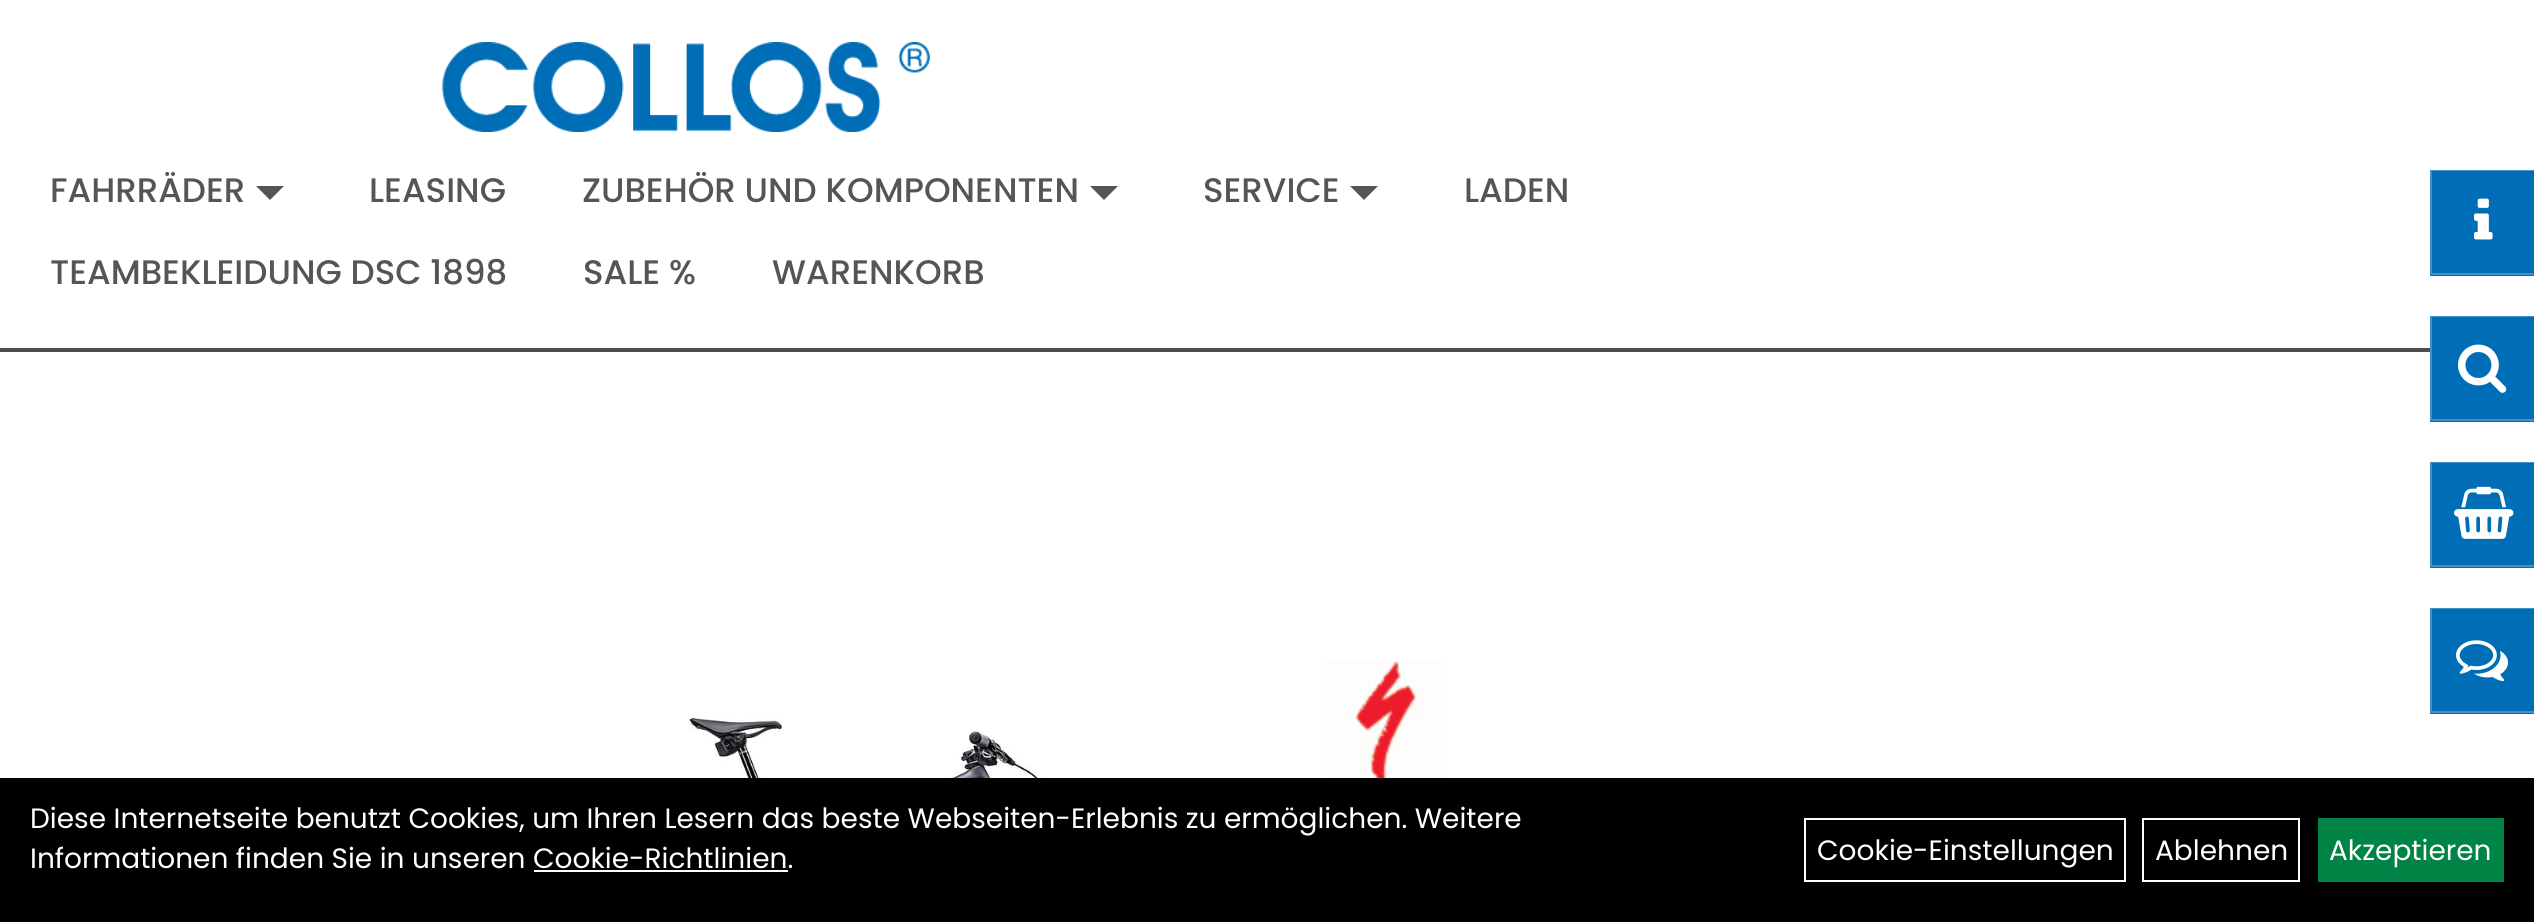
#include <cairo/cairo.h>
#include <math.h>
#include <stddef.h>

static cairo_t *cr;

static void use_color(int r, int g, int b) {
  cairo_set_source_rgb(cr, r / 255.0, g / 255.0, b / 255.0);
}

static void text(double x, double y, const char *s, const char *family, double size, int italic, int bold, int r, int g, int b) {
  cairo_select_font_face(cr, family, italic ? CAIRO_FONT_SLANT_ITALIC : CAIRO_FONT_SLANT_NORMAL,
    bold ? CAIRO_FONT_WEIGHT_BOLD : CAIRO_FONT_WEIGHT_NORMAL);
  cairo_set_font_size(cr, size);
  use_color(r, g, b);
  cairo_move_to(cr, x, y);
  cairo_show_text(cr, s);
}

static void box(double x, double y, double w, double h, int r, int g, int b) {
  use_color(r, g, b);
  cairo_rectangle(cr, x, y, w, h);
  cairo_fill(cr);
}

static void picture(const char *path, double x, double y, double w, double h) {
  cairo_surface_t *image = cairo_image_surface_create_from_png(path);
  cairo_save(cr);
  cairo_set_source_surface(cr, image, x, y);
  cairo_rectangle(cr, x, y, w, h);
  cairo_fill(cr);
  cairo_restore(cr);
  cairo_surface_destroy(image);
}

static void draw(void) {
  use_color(255, 255, 255);
  cairo_paint(cr);
  box(0, 348, 2430, 4, 78, 78, 78);
  picture("img_01.png", 442, 42, 488, 90);
  use_color(85, 85, 85);
  cairo_new_path(cr);
  cairo_move_to(cr, 256, 186);
  cairo_line_to(cr, 284, 186);
  cairo_line_to(cr, 270, 200);
  cairo_close_path(cr);
  cairo_fill(cr);
  cairo_new_path(cr);
  cairo_move_to(cr, 1090, 186);
  cairo_line_to(cr, 1118, 186);
  cairo_line_to(cr, 1104, 200);
  cairo_close_path(cr);
  cairo_fill(cr);
  cairo_new_path(cr);
  cairo_move_to(cr, 1350, 186);
  cairo_line_to(cr, 1378, 186);
  cairo_line_to(cr, 1364, 200);
  cairo_close_path(cr);
  cairo_fill(cr);
  picture("img_02.png", 510, 713, 705, 65);
  picture("img_03.png", 1326, 660, 120, 118);
  box(2430, 170, 104, 106, 0, 110, 183);
  cairo_set_source_rgba(cr, 1, 1, 1, 0.25);
  cairo_new_path(cr);
  cairo_move_to(cr, 2430, 169);
  cairo_line_to(cr, 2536, 169);
  cairo_line_to(cr, 2534, 171);
  cairo_line_to(cr, 2432, 171);
  cairo_close_path(cr);
  cairo_fill(cr);
  use_color(64, 146, 201);
  cairo_new_path(cr);
  cairo_move_to(cr, 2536, 275);
  cairo_line_to(cr, 2430, 275);
  cairo_line_to(cr, 2432, 273);
  cairo_line_to(cr, 2534, 273);
  cairo_close_path(cr);
  cairo_fill(cr);
  cairo_set_source_rgba(cr, 1, 1, 1, 0.25);
  cairo_new_path(cr);
  cairo_move_to(cr, 2430, 275);
  cairo_line_to(cr, 2430, 169);
  cairo_line_to(cr, 2432, 171);
  cairo_line_to(cr, 2432, 273);
  cairo_close_path(cr);
  cairo_fill(cr);
  picture("img_04.png", 2474, 198, 19, 42);
  box(2430, 316, 104, 106, 0, 110, 183);
  cairo_set_source_rgba(cr, 1, 1, 1, 0.25);
  cairo_new_path(cr);
  cairo_move_to(cr, 2430, 315);
  cairo_line_to(cr, 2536, 315);
  cairo_line_to(cr, 2534, 317);
  cairo_line_to(cr, 2432, 317);
  cairo_close_path(cr);
  cairo_fill(cr);
  use_color(64, 146, 201);
  cairo_new_path(cr);
  cairo_move_to(cr, 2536, 421);
  cairo_line_to(cr, 2430, 421);
  cairo_line_to(cr, 2432, 419);
  cairo_line_to(cr, 2534, 419);
  cairo_close_path(cr);
  cairo_fill(cr);
  cairo_set_source_rgba(cr, 1, 1, 1, 0.25);
  cairo_new_path(cr);
  cairo_move_to(cr, 2430, 421);
  cairo_line_to(cr, 2430, 315);
  cairo_line_to(cr, 2432, 317);
  cairo_line_to(cr, 2432, 419);
  cairo_close_path(cr);
  cairo_fill(cr);
  picture("img_05.png", 2458, 344, 49, 49);
  box(2430, 462, 104, 106, 0, 110, 183);
  cairo_set_source_rgba(cr, 1, 1, 1, 0.25);
  cairo_new_path(cr);
  cairo_move_to(cr, 2430, 461);
  cairo_line_to(cr, 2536, 461);
  cairo_line_to(cr, 2534, 463);
  cairo_line_to(cr, 2432, 463);
  cairo_close_path(cr);
  cairo_fill(cr);
  use_color(64, 146, 201);
  cairo_new_path(cr);
  cairo_move_to(cr, 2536, 567);
  cairo_line_to(cr, 2430, 567);
  cairo_line_to(cr, 2432, 565);
  cairo_line_to(cr, 2534, 565);
  cairo_close_path(cr);
  cairo_fill(cr);
  cairo_set_source_rgba(cr, 1, 1, 1, 0.25);
  cairo_new_path(cr);
  cairo_move_to(cr, 2430, 567);
  cairo_line_to(cr, 2430, 461);
  cairo_line_to(cr, 2432, 463);
  cairo_line_to(cr, 2432, 565);
  cairo_close_path(cr);
  cairo_fill(cr);
  picture("img_06.png", 2454, 486, 60, 53);
  box(2430, 608, 104, 106, 0, 110, 183);
  cairo_set_source_rgba(cr, 1, 1, 1, 0.25);
  cairo_new_path(cr);
  cairo_move_to(cr, 2430, 607);
  cairo_line_to(cr, 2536, 607);
  cairo_line_to(cr, 2534, 609);
  cairo_line_to(cr, 2432, 609);
  cairo_close_path(cr);
  cairo_fill(cr);
  use_color(64, 146, 201);
  cairo_new_path(cr);
  cairo_move_to(cr, 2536, 713);
  cairo_line_to(cr, 2430, 713);
  cairo_line_to(cr, 2432, 711);
  cairo_line_to(cr, 2534, 711);
  cairo_close_path(cr);
  cairo_fill(cr);
  cairo_set_source_rgba(cr, 1, 1, 1, 0.25);
  cairo_new_path(cr);
  cairo_move_to(cr, 2430, 713);
  cairo_line_to(cr, 2430, 607);
  cairo_line_to(cr, 2432, 609);
  cairo_line_to(cr, 2432, 711);
  cairo_close_path(cr);
  cairo_fill(cr);
  picture("img_07.png", 2456, 640, 52, 42);
  box(0, 778, 2534, 144, 0, 0, 0);
  box(534, 870, 254, 2, 255, 255, 255);
  cairo_rectangle(cr, 1805, 819, 320, 62);
  cairo_stroke(cr);
  cairo_rectangle(cr, 2143, 819, 156, 62);
  cairo_stroke(cr);
  box(2318, 818, 186, 64, 0, 132, 70);
  text(50, 202, "FAHRRÄDER", "Poppins Medium", 34, 0, 0, 85, 85, 85);
  text(369, 202, "LEASING", "Poppins Medium", 34, 0, 0, 85, 85, 85);
  text(582, 202, "ZUBEHÖR UND KOMPONENTEN", "Poppins Medium", 34, 0, 0, 85, 85, 85);
  text(1203, 202, "SERVICE", "Poppins Medium", 34, 0, 0, 85, 85, 85);
  text(1464, 202, "LADEN", "Poppins Medium", 34, 0, 0, 85, 85, 85);
  text(50, 284, "TEAMBEKLEIDUNG DSC 1898", "Poppins Medium", 34, 0, 0, 85, 85, 85);
  text(583, 284, "SALE %", "Poppins Medium", 34, 0, 0, 85, 85, 85);
  text(772, 284, "WARENKORB", "Poppins Medium", 34, 0, 0, 85, 85, 85);
  text(30, 828, "Diese Internetseite benutzt Cookies, um Ihren Lesern das beste Webseiten-Erlebnis zu ermöglichen. Weitere", "Poppins", 28, 0, 0, 255, 255, 255);
  text(30, 868, "Informationen finden Sie in unseren Cookie-Richtlinien.", "Poppins", 28, 0, 0, 255, 255, 255);
  text(1817, 860, "Cookie-Einstellungen", "Poppins", 28, 0, 0, 255, 255, 255);
  text(2155, 860, "Ablehnen", "Poppins", 28, 0, 0, 255, 255, 255);
  text(2329, 860, "Akzeptieren", "Poppins", 28, 0, 0, 255, 255, 255);
}

int main(void) {
  cairo_surface_t *surface = cairo_image_surface_create(CAIRO_FORMAT_RGB24, 2534, 922);
  cr = cairo_create(surface);
  cairo_font_options_t *options = cairo_font_options_create();
  cairo_font_options_set_hint_metrics(options, CAIRO_HINT_METRICS_OFF);
  cairo_font_options_set_hint_style(options, CAIRO_HINT_STYLE_NONE);
  cairo_set_font_options(cr, options);
  cairo_set_miter_limit(cr, 4);
  draw();
  cairo_surface_write_to_png(surface, "out.png");
  cairo_font_options_destroy(options);
  cairo_destroy(cr);
  cairo_surface_destroy(surface);
  return 0;
}
